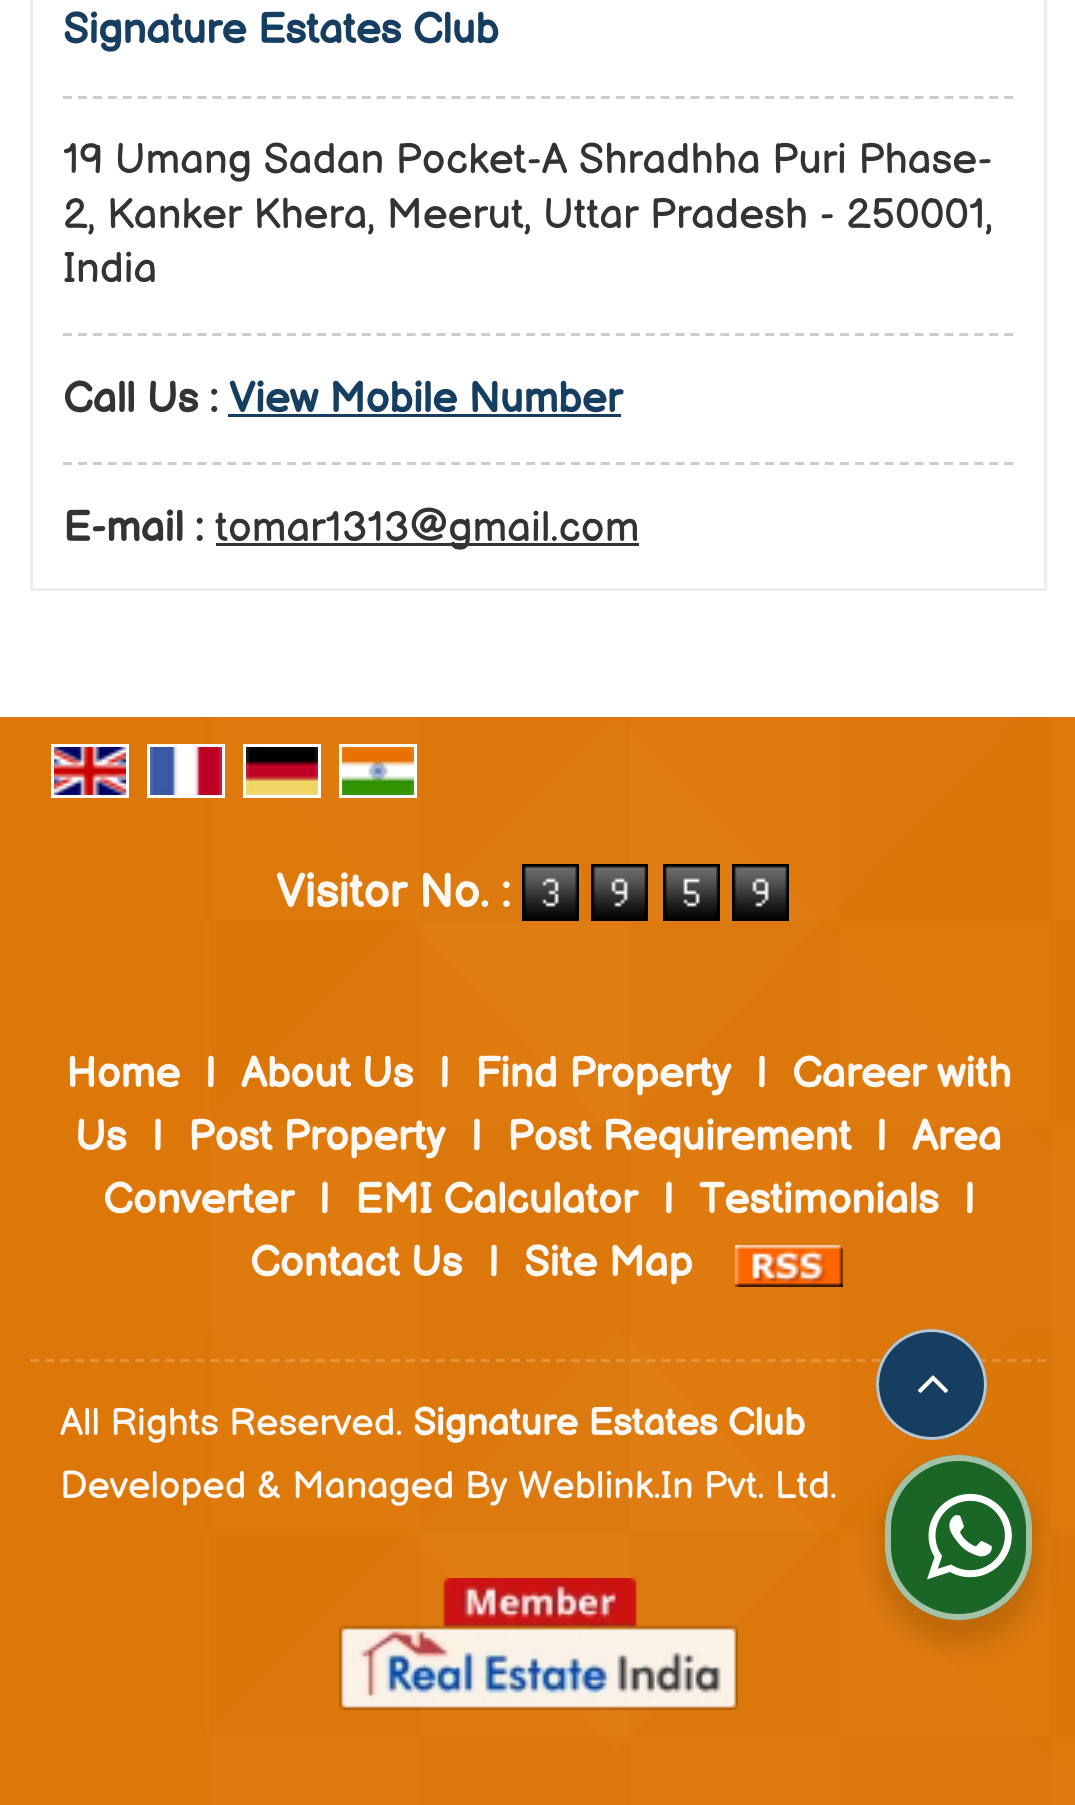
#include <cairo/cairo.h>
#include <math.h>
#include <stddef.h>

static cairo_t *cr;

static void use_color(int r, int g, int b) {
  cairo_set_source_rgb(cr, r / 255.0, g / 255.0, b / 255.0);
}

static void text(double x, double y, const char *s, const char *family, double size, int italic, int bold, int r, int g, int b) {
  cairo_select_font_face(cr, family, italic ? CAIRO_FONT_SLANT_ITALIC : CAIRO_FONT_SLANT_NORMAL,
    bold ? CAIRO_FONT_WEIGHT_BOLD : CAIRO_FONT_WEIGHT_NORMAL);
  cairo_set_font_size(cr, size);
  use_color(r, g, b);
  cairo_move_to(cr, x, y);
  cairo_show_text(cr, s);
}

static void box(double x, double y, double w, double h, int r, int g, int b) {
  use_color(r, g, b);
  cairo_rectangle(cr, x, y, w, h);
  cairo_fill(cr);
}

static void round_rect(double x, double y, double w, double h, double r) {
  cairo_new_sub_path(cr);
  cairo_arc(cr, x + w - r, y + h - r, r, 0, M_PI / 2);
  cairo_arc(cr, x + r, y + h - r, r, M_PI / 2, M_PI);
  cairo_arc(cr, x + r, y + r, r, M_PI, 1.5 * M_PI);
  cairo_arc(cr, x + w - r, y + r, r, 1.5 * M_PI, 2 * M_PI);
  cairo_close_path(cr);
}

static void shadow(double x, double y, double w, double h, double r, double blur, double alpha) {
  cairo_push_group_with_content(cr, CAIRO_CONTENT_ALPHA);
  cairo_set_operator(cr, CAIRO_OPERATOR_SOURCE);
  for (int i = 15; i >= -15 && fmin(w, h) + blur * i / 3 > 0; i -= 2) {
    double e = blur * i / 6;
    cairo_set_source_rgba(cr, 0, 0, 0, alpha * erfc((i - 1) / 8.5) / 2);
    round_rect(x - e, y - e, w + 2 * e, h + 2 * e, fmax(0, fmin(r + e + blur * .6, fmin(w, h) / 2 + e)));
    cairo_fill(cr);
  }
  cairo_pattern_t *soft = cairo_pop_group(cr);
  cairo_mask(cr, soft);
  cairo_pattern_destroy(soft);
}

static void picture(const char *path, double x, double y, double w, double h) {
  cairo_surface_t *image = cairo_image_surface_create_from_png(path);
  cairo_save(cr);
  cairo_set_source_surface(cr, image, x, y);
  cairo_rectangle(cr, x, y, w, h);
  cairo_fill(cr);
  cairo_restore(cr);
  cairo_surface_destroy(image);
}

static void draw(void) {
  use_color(255, 255, 255);
  cairo_paint(cr);
  cairo_rectangle(cr, 31.5, -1.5, 1014, 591);
  use_color(237, 237, 237);
  cairo_set_line_width(cr, 3);
  cairo_stroke(cr);
  cairo_new_path(cr);
  cairo_move_to(cr, 63, 97.5);
  cairo_line_to(cr, 1014, 97.5);
  use_color(204, 204, 204);
  cairo_set_dash(cr, (double[]){9, 5.94}, 2, 0);
  cairo_stroke(cr);
  cairo_new_path(cr);
  cairo_move_to(cr, 63, 334.5);
  cairo_line_to(cr, 1014, 334.5);
  cairo_stroke(cr);
  box(228, 414, 393, 3, 22, 62, 97);
  cairo_new_path(cr);
  cairo_move_to(cr, 63, 463.5);
  cairo_line_to(cr, 1014, 463.5);
  use_color(204, 204, 204);
  cairo_stroke(cr);
  box(216, 543, 423, 3, 51, 51, 51);
  box(0, 717, 1075, 1088, 222, 119, 9);
  picture("img_01.png", 205, 717, 870, 1088);
  cairo_rectangle(cr, 52.5, 745.5, 75, 51);
  use_color(255, 255, 255);
  cairo_set_dash(cr, NULL, 0, 0);
  cairo_stroke(cr);
  cairo_rectangle(cr, 148.5, 745.5, 75, 51);
  cairo_stroke(cr);
  cairo_rectangle(cr, 244.5, 745.5, 75, 51);
  cairo_stroke(cr);
  cairo_rectangle(cr, 340.5, 745.5, 75, 51);
  cairo_stroke(cr);
  picture("img_02.png", 54, 747, 72, 48);
  picture("img_03.png", 150, 747, 72, 48);
  picture("img_04.png", 246, 747, 72, 48);
  picture("img_05.png", 342, 747, 72, 48);
  picture("img_06.png", 522, 864, 57, 57);
  picture("img_07.png", 591, 864, 57, 57);
  picture("img_08.png", 663, 864, 57, 57);
  picture("img_09.png", 732, 864, 57, 57);
  picture("img_10.png", 735, 1245, 108, 42);
  cairo_new_path(cr);
  cairo_move_to(cr, 30, 1360.5);
  cairo_line_to(cr, 1047, 1360.5);
  cairo_set_source_rgba(cr, 1, 1, 1, 0.2);
  cairo_set_dash(cr, (double[]){9, 6.03}, 2, 0);
  cairo_stroke(cr);
  picture("img_11.png", 339, 1578, 399, 132);
  use_color(22, 62, 97);
  cairo_arc(cr, 931.5, 1384.5, 55.5, 0, 2 * M_PI);
  cairo_fill(cr);
  cairo_arc(cr, 931.5, 1384.5, 54, 0, 2 * M_PI);
  cairo_set_source_rgba(cr, 1, 1, 1, 0.7);
  cairo_set_dash(cr, NULL, 0, 0);
  cairo_stroke(cr);
  picture("img_12.png", 918, 1375, 30, 18);
  use_color(0, 0, 0);
  shadow(879, 1467, 159, 177, 79.5, 12, 0.14);
  use_color(25, 102, 38);
  round_rect(885, 1455, 147, 165, 73.5);
  cairo_fill(cr);
  round_rect(888, 1458, 141, 159, 70.5);
  cairo_set_source_rgba(cr, 1, 1, 1, 0.6);
  cairo_set_line_width(cr, 6);
  cairo_stroke(cr);
  picture("img_13.png", 927, 1493, 85, 87);
  text(63, 43, "Signature Estates Club", "Balsamiq Sans", 42, 0, 1, 22, 62, 97);
  text(63, 173, "19 Umang Sadan Pocket-A Shradhha Puri Phase-", "Balsamiq Sans", 42, 0, 0, 51, 51, 51);
  text(63, 228, "2, Kanker Khera, Meerut, Uttar Pradesh - 250001,", "Balsamiq Sans", 42, 0, 0, 51, 51, 51);
  text(63, 282, "India", "Balsamiq Sans", 42, 0, 0, 51, 51, 51);
  text(63, 412, "Call Us :", "Balsamiq Sans", 42, 0, 1, 51, 51, 51);
  text(229, 412, "View Mobile Number", "Balsamiq Sans", 42, 0, 1, 22, 62, 97);
  text(63, 541, "E-mail :", "Balsamiq Sans", 42, 0, 1, 51, 51, 51);
  text(215, 541, "tomar1313@gmail.com", "Balsamiq Sans", 42, 0, 0, 51, 51, 51);
  text(276, 907, "Visitor No. :", "Balsamiq Sans", 46.25, 0, 1, 253, 248, 243);
  text(66, 1087, "Home", "Balsamiq Sans", 42, 0, 1, 253, 248, 243);
  text(206, 1087, "|", "Balsamiq Sans", 42, 0, 1, 253, 248, 243);
  text(241, 1087, "About Us", "Balsamiq Sans", 42, 0, 1, 253, 248, 243);
  text(440, 1087, "|", "Balsamiq Sans", 42, 0, 1, 253, 248, 243);
  text(475, 1087, "Find Property", "Balsamiq Sans", 42, 0, 1, 253, 248, 243);
  text(757, 1087, "|", "Balsamiq Sans", 42, 0, 1, 253, 248, 243);
  text(792, 1087, "Career with", "Balsamiq Sans", 42, 0, 1, 253, 248, 243);
  text(75, 1150, "Us", "Balsamiq Sans", 42, 0, 1, 253, 248, 243);
  text(153, 1150, "|", "Balsamiq Sans", 42, 0, 1, 253, 248, 243);
  text(188, 1150, "Post Property", "Balsamiq Sans", 42, 0, 1, 253, 248, 243);
  text(472, 1150, "|", "Balsamiq Sans", 42, 0, 1, 253, 248, 243);
  text(507, 1150, "Post Requirement", "Balsamiq Sans", 42, 0, 1, 253, 248, 243);
  text(877, 1150, "|", "Balsamiq Sans", 42, 0, 1, 253, 248, 243);
  text(912, 1150, "Area", "Balsamiq Sans", 42, 0, 1, 253, 248, 243);
  text(103, 1213, "Converter", "Balsamiq Sans", 42, 0, 1, 253, 248, 243);
  text(320, 1213, "|", "Balsamiq Sans", 42, 0, 1, 253, 248, 243);
  text(355, 1213, "EMI Calculator", "Balsamiq Sans", 42, 0, 1, 253, 248, 243);
  text(664, 1213, "|", "Balsamiq Sans", 42, 0, 1, 253, 248, 243);
  text(699, 1213, "Testimonials", "Balsamiq Sans", 42, 0, 1, 253, 248, 243);
  text(965, 1213, "|", "Balsamiq Sans", 42, 0, 1, 253, 248, 243);
  text(250, 1276, "Contact Us", "Balsamiq Sans", 42, 0, 1, 253, 248, 243);
  text(489, 1276, "|", "Balsamiq Sans", 42, 0, 1, 253, 248, 243);
  text(524, 1276, "Site Map", "Balsamiq Sans", 42, 0, 1, 253, 248, 243);
  text(60, 1435, "All Rights Reserved.", "Balsamiq Sans", 37.8, 0, 0, 253, 248, 243);
  text(413, 1435, "Signature Estates Club", "Balsamiq Sans", 37.8, 0, 1, 253, 248, 243);
  text(60, 1498, "Developed & Managed By Weblink.In Pvt. Ltd.", "Balsamiq Sans", 37.8, 0, 0, 253, 248, 243);
}

int main(void) {
  cairo_surface_t *surface = cairo_image_surface_create(CAIRO_FORMAT_RGB24, 1075, 1805);
  cr = cairo_create(surface);
  cairo_font_options_t *options = cairo_font_options_create();
  cairo_font_options_set_hint_metrics(options, CAIRO_HINT_METRICS_OFF);
  cairo_font_options_set_hint_style(options, CAIRO_HINT_STYLE_NONE);
  cairo_set_font_options(cr, options);
  cairo_set_miter_limit(cr, 4);
  draw();
  cairo_surface_write_to_png(surface, "out.png");
  cairo_font_options_destroy(options);
  cairo_destroy(cr);
  cairo_surface_destroy(surface);
  return 0;
}
